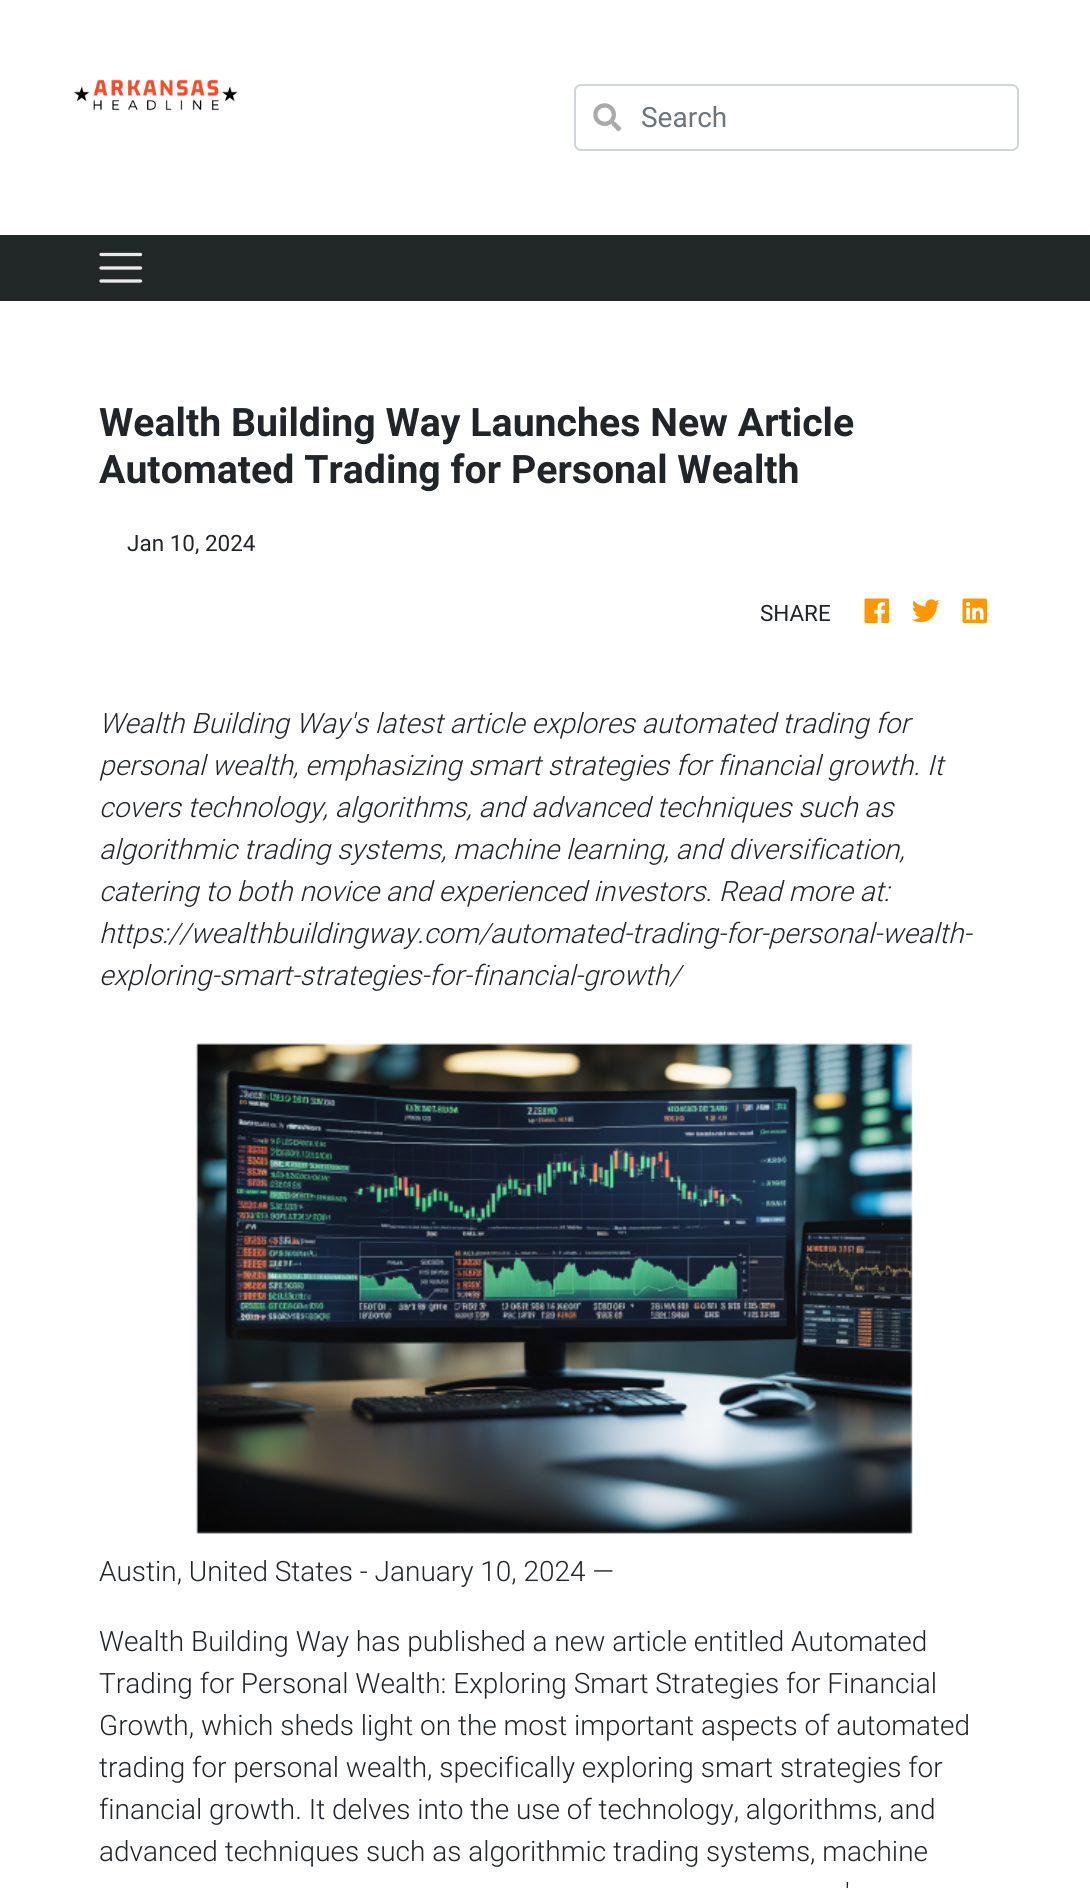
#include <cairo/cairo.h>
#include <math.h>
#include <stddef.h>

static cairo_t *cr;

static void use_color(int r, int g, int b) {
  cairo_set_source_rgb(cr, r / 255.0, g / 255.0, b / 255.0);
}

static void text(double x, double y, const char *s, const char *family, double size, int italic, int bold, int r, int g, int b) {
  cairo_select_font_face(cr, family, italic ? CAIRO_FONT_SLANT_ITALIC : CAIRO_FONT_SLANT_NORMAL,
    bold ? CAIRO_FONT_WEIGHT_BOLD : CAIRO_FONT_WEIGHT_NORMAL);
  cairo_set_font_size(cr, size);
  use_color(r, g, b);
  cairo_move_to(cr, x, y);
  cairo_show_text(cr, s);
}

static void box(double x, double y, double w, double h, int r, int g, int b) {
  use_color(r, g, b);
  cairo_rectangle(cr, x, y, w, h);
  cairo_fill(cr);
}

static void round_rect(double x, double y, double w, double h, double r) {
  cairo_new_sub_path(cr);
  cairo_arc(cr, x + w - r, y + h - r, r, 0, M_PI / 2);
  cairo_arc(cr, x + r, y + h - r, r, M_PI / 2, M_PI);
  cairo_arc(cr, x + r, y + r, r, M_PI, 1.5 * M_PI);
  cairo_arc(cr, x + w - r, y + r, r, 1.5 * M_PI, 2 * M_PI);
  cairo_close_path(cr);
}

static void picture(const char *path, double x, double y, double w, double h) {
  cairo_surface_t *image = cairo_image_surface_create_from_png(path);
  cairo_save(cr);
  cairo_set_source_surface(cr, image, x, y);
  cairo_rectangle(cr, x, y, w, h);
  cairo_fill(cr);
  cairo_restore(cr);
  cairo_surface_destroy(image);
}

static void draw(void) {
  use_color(255, 255, 255);
  cairo_paint(cr);
  picture("img_01.png", 74, 79, 164, 32);
  round_rect(575, 85, 443, 65, 6);
  use_color(206, 212, 218);
  cairo_stroke(cr);
  picture("img_02.png", 593, 103, 29, 29);
  box(0, 235, 1090, 66, 33, 40, 39);
  cairo_new_path(cr);
  cairo_move_to(cr, 101, 254.5);
  cairo_line_to(cr, 140.5, 254.5);
  cairo_move_to(cr, 101, 268);
  cairo_line_to(cr, 140.5, 268);
  cairo_move_to(cr, 101, 281);
  cairo_line_to(cr, 140.5, 281);
  use_color(233, 234, 233);
  cairo_set_line_width(cr, 3.3);
  cairo_set_line_cap(cr, CAIRO_LINE_CAP_ROUND);
  cairo_stroke(cr);
  picture("img_03.png", 864, 598, 25, 25);
  picture("img_04.png", 911, 599, 29, 24);
  picture("img_05.png", 962, 598, 25, 25);
  picture("img_06.png", 195, 1043, 718, 491);
  text(641, 127, "Search", "Roboto", 28, 0, 0, 108, 117, 125);
  text(99, 436, "Wealth Building Way Launches New Article", "Roboto", 39.25, 0, 1, 33, 37, 41);
  text(99, 483, "Automated Trading for Personal Wealth", "Roboto", 39.25, 0, 1, 33, 37, 41);
  text(127, 551, "Jan 10, 2024", "Roboto", 22.5, 0, 0, 33, 37, 41);
  text(760, 621, "SHARE", "Roboto", 22.5, 0, 0, 33, 37, 41);
  text(99, 733, "Wealth Building Way's latest article explores automated trading for", "Roboto Light", 28, 1, 0, 33, 37, 41);
  text(99, 775, "personal wealth, emphasizing smart strategies for financial growth. It", "Roboto Light", 28, 1, 0, 33, 37, 41);
  text(99, 817, "covers technology, algorithms, and advanced techniques such as", "Roboto Light", 28, 1, 0, 33, 37, 41);
  text(99, 859, "algorithmic trading systems, machine learning, and diversification,", "Roboto Light", 28, 1, 0, 33, 37, 41);
  text(99, 901, "catering to both novice and experienced investors. Read more at:", "Roboto Light", 28, 1, 0, 33, 37, 41);
  text(99, 943, "https://wealthbuildingway.com/automated-trading-for-personal-wealth-", "Roboto Light", 28, 1, 0, 33, 37, 41);
  text(99, 985, "exploring-smart-strategies-for-financial-growth/", "Roboto Light", 28, 1, 0, 33, 37, 41);
  text(99, 1581, "Austin, United States - January 10, 2024 —", "Roboto Light", 28, 0, 0, 33, 37, 41);
  text(99, 1651, "Wealth Building Way has published a new article entitled Automated", "Roboto Light", 28, 0, 0, 33, 37, 41);
  text(99, 1693, "Trading for Personal Wealth: Exploring Smart Strategies for Financial", "Roboto Light", 28, 0, 0, 33, 37, 41);
  text(99, 1735, "Growth, which sheds light on the most important aspects of automated", "Roboto Light", 28, 0, 0, 33, 37, 41);
  text(99, 1777, "trading for personal wealth, specifically exploring smart strategies for", "Roboto Light", 28, 0, 0, 33, 37, 41);
  text(99, 1819, "financial growth. It delves into the use of technology, algorithms, and", "Roboto Light", 28, 0, 0, 33, 37, 41);
  text(99, 1861, "advanced techniques such as algorithmic trading systems, machine", "Roboto Light", 28, 0, 0, 33, 37, 41);
  text(845, 1903, "'", "Roboto Light", 28, 0, 0, 33, 37, 41);
}

int main(void) {
  cairo_surface_t *surface = cairo_image_surface_create(CAIRO_FORMAT_RGB24, 1090, 1890);
  cr = cairo_create(surface);
  cairo_font_options_t *options = cairo_font_options_create();
  cairo_font_options_set_hint_metrics(options, CAIRO_HINT_METRICS_OFF);
  cairo_font_options_set_hint_style(options, CAIRO_HINT_STYLE_NONE);
  cairo_set_font_options(cr, options);
  cairo_set_miter_limit(cr, 4);
  draw();
  cairo_surface_write_to_png(surface, "out.png");
  cairo_font_options_destroy(options);
  cairo_destroy(cr);
  cairo_surface_destroy(surface);
  return 0;
}
